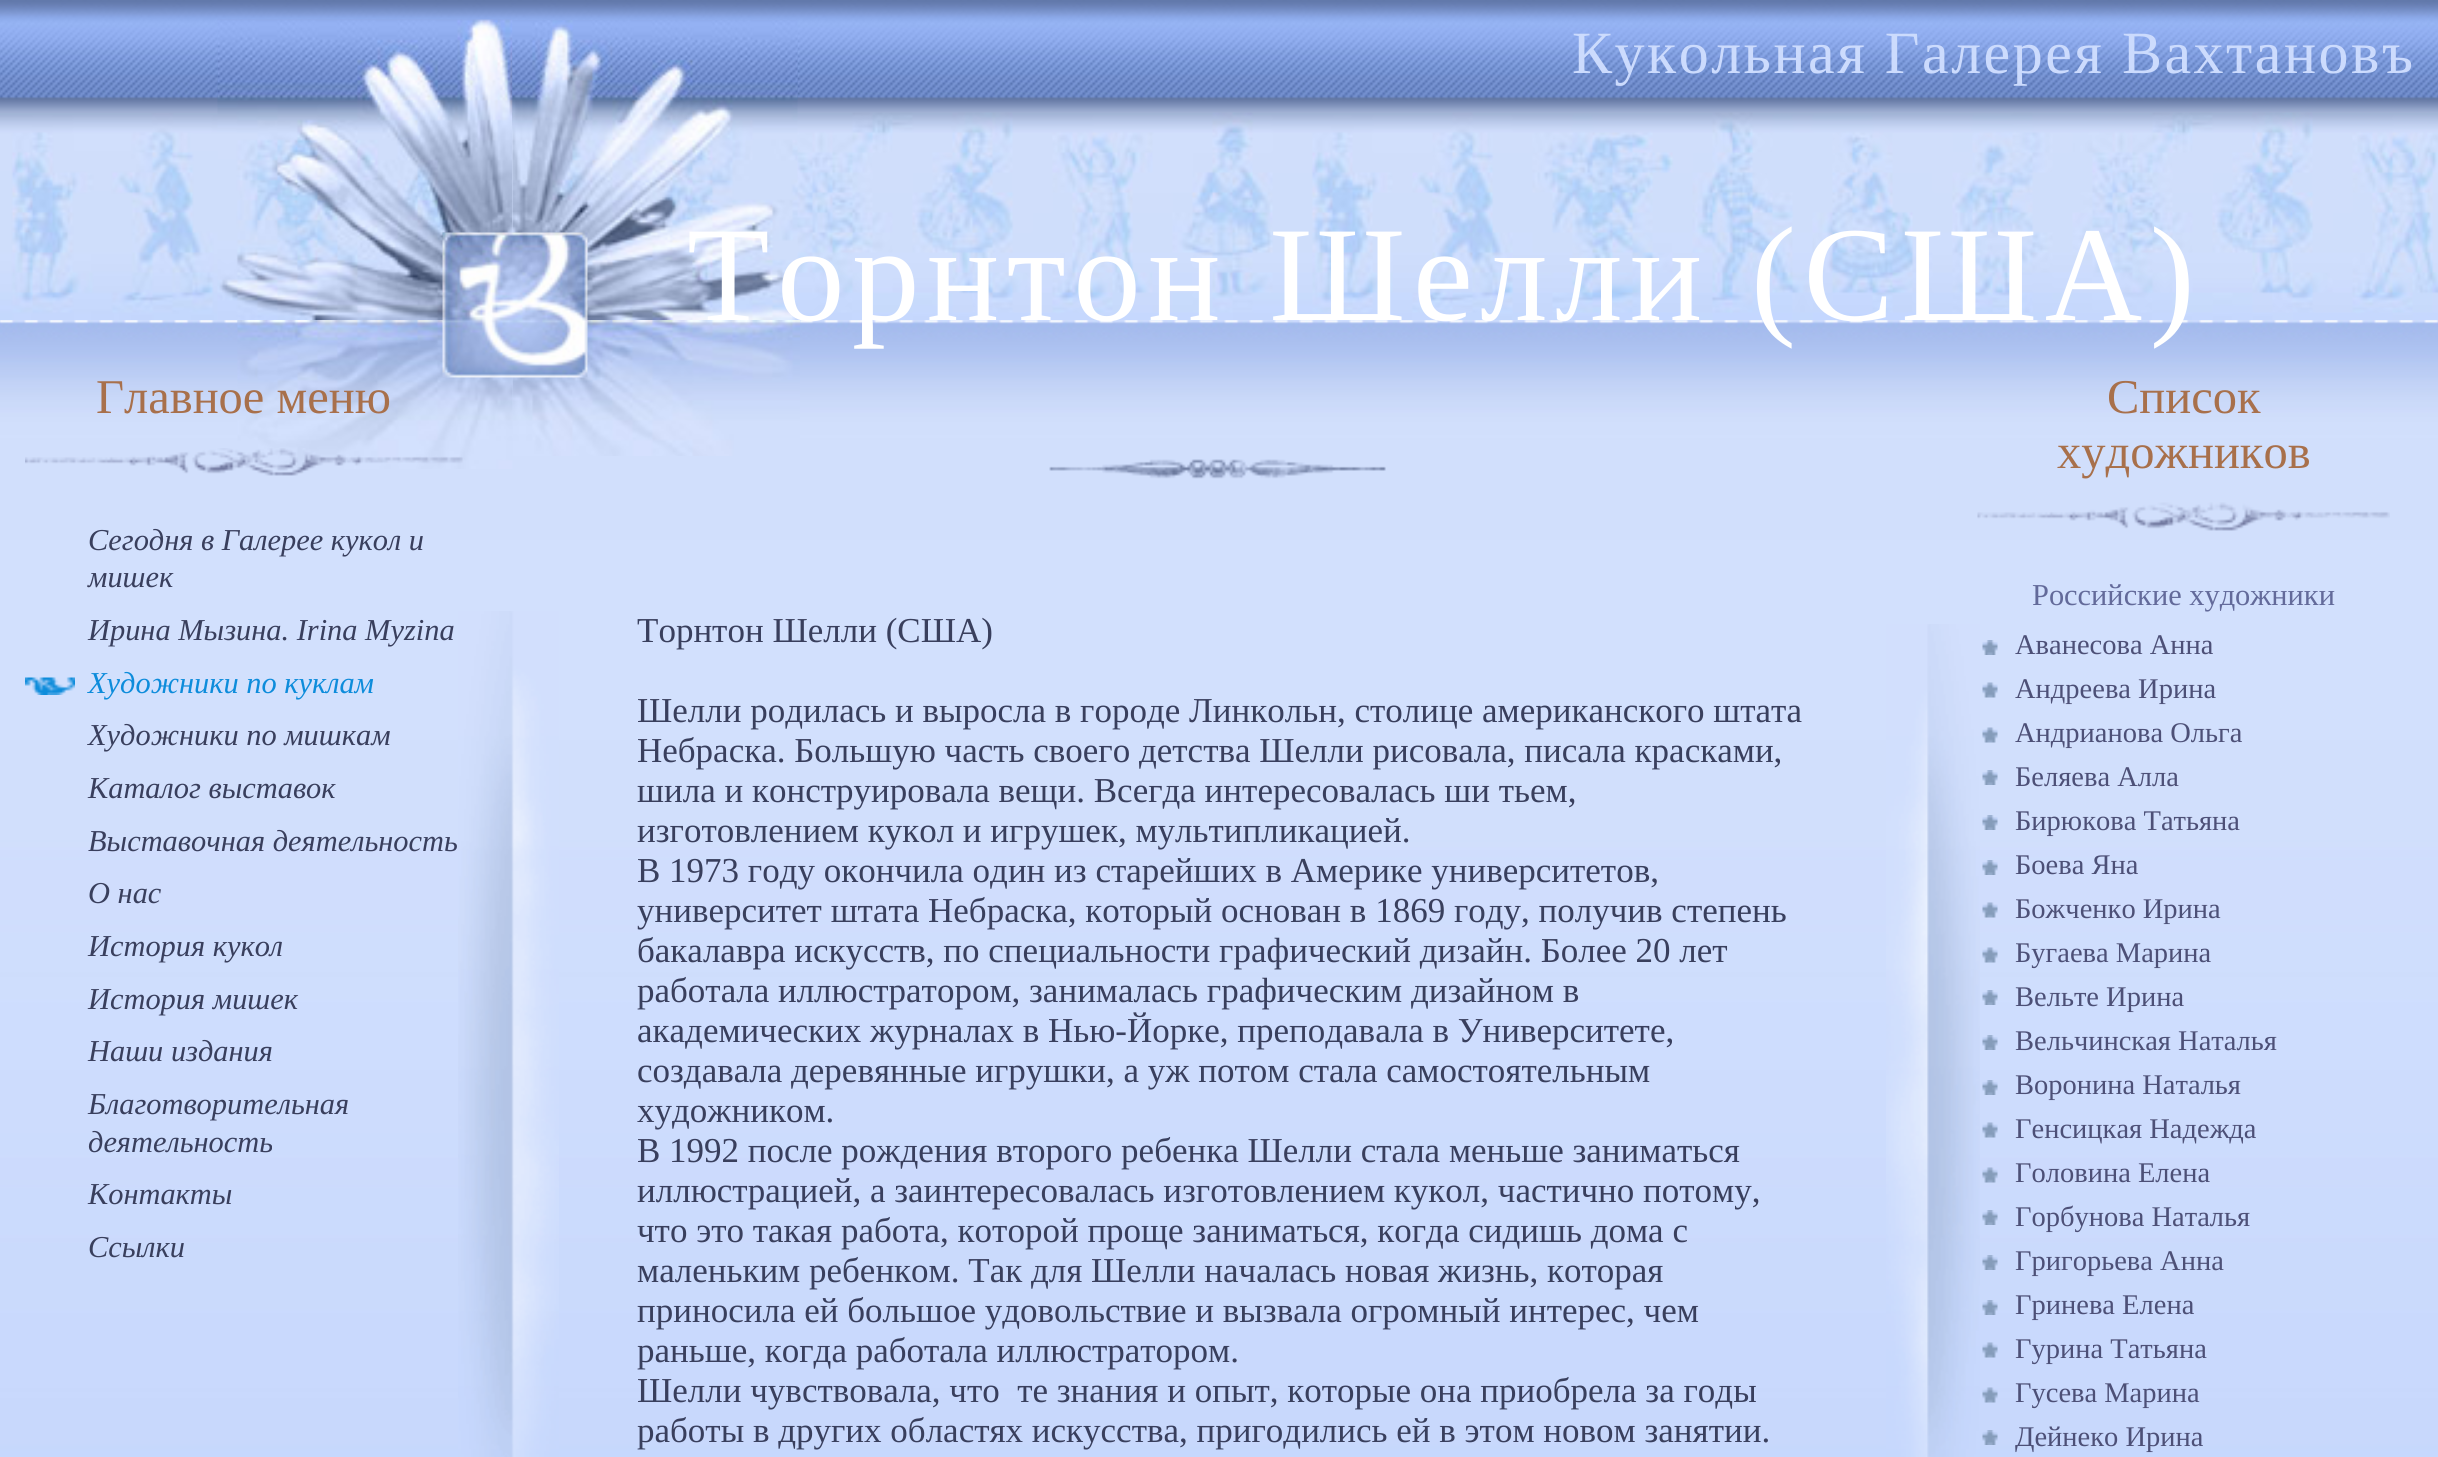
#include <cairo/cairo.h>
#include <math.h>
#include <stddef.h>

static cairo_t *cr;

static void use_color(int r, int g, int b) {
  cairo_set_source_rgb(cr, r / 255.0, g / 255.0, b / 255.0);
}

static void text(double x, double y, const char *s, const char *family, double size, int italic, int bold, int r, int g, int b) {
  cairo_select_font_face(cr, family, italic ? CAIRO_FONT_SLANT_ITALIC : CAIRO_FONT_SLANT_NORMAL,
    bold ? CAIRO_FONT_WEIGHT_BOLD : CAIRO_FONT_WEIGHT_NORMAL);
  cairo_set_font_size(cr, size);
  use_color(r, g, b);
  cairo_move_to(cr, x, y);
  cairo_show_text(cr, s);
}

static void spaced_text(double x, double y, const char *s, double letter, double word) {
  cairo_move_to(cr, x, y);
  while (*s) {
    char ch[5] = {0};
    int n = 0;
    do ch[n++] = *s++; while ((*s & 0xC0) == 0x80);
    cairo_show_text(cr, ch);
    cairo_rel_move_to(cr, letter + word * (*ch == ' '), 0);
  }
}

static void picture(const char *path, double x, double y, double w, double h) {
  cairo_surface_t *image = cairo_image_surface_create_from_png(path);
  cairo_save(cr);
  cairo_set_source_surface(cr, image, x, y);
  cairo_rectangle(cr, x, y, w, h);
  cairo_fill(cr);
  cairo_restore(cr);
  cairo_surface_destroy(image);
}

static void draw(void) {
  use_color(255, 255, 255);
  cairo_paint(cr);
  picture("img_01.png", 0, 0, 2438, 1457);
  picture("img_02.png", 0, 113, 513, 207);
  picture("img_03.png", 217, 19, 296, 301);
  picture("img_05.png", 512, 112, 1926, 208);
  picture("img_06.png", 512, 20, 286, 300);
  picture("img_12.png", 512, 320, 288, 136);
  picture("img_08.png", 237, 320, 276, 149);
  picture("img_04.png", 442, 232, 146, 146);
  picture("img_07.png", 458, 611, 101, 846);
  picture("img_09.png", 25, 448, 438, 28);
  picture("img_10.png", 25, 677, 50, 18);
  picture("img_11.png", 1886, 624, 94, 833);
  picture("img_13.png", 1049, 459, 337, 20);
  picture("img_14.png", 1977, 502, 413, 29);
  picture("img_15.png", 1982, 640, 16, 15);
  picture("img_16.png", 1982, 682, 16, 16);
  picture("img_17.png", 1982, 727, 16, 16);
  picture("img_18.png", 1982, 770, 16, 15);
  picture("img_18.png", 1982, 815, 16, 15);
  picture("img_19.png", 1982, 860, 16, 15);
  picture("img_20.png", 1982, 902, 16, 16);
  picture("img_21.png", 1982, 947, 16, 16);
  picture("img_22.png", 1982, 990, 16, 15);
  picture("img_23.png", 1982, 1035, 16, 15);
  picture("img_24.png", 1982, 1080, 16, 15);
  picture("img_25.png", 1982, 1122, 16, 16);
  picture("img_26.png", 1982, 1167, 16, 16);
  picture("img_27.png", 1982, 1210, 16, 15);
  picture("img_28.png", 1982, 1255, 16, 15);
  picture("img_29.png", 1982, 1300, 16, 15);
  picture("img_30.png", 1982, 1342, 16, 16);
  picture("img_31.png", 1982, 1387, 16, 16);
  picture("img_32.png", 1982, 1430, 16, 15);
  cairo_select_font_face(cr, "Liberation Serif", CAIRO_FONT_SLANT_NORMAL, CAIRO_FONT_WEIGHT_NORMAL);
  cairo_set_font_size(cr, 60);
  use_color(204, 219, 253);
  spaced_text(1572, 73, "Кукольная Галерея Вахтановъ", 2.5, 0);
  cairo_set_font_size(cr, 135);
  use_color(255, 255, 255);
  spaced_text(687, 320, "Торнтон Шелли (США)", 7.5, 0);
  text(96, 413, "Главное меню", "Liberation Serif", 48.5, 0, 0, 168, 112, 75);
  text(88, 550, "Сегодня в Галерее кукол и", "Liberation Serif", 30.4, 1, 0, 57, 63, 93);
  text(88, 587, "мишек", "Liberation Serif", 30.4, 1, 0, 57, 63, 93);
  text(88, 640, "Ирина Мызина. Irina Myzina", "Liberation Serif", 30.4, 1, 0, 57, 63, 93);
  text(88, 693, "Художники по куклам", "Liberation Serif", 30.4, 1, 0, 13, 140, 219);
  text(88, 745, "Художники по мишкам", "Liberation Serif", 30.4, 1, 0, 57, 63, 93);
  text(88, 798, "Каталог выставок", "Liberation Serif", 30.4, 1, 0, 57, 63, 93);
  text(88, 851, "Выставочная деятельность", "Liberation Serif", 30.4, 1, 0, 57, 63, 93);
  text(88, 903, "О нас", "Liberation Serif", 30.4, 1, 0, 57, 63, 93);
  text(88, 956, "История кукол", "Liberation Serif", 30.4, 1, 0, 57, 63, 93);
  text(88, 1009, "История мишек", "Liberation Serif", 30.4, 1, 0, 57, 63, 93);
  text(88, 1061, "Наши издания", "Liberation Serif", 30.4, 1, 0, 57, 63, 93);
  text(88, 1114, "Благотворительная", "Liberation Serif", 30.4, 1, 0, 57, 63, 93);
  text(88, 1152, "деятельность", "Liberation Serif", 30.4, 1, 0, 57, 63, 93);
  text(88, 1204, "Контакты", "Liberation Serif", 30.4, 1, 0, 57, 63, 93);
  text(88, 1257, "Ссылки", "Liberation Serif", 30.4, 1, 0, 57, 63, 93);
  text(637, 642, "Торнтон Шелли (США)", "Liberation Serif", 35, 0, 0, 57, 63, 93);
  text(637, 722, "Шелли родилась и выросла в городе Линкольн, столице американского штата", "Liberation Serif", 35, 0, 0, 57, 63, 93);
  text(637, 762, "Небраска. Большую часть своего детства Шелли рисовала, писала красками,", "Liberation Serif", 35, 0, 0, 57, 63, 93);
  text(637, 802, "шила и конструировала вещи. Всегда интересовалась ши тьем,", "Liberation Serif", 35, 0, 0, 57, 63, 93);
  text(637, 842, "изготовлением кукол и игрушек, мультипликацией.", "Liberation Serif", 35, 0, 0, 57, 63, 93);
  text(637, 882, "В 1973 году окончила один из старейших в Америке университетов,", "Liberation Serif", 35, 0, 0, 57, 63, 93);
  text(637, 922, "университет штата Небраска, который основан в 1869 году, получив степень", "Liberation Serif", 35, 0, 0, 57, 63, 93);
  text(637, 962, "бакалавра искусств, по специальности графический дизайн. Более 20 лет", "Liberation Serif", 35, 0, 0, 57, 63, 93);
  text(637, 1002, "работала иллюстратором, занималась графическим дизайном в", "Liberation Serif", 35, 0, 0, 57, 63, 93);
  text(637, 1042, "академических журналах в Нью-Йорке, преподавала в Университете,", "Liberation Serif", 35, 0, 0, 57, 63, 93);
  text(637, 1082, "создавала деревянные игрушки, а уж потом стала самостоятельным", "Liberation Serif", 35, 0, 0, 57, 63, 93);
  text(637, 1122, "художником.", "Liberation Serif", 35, 0, 0, 57, 63, 93);
  text(637, 1162, "В 1992 после рождения второго ребенка Шелли стала меньше заниматься", "Liberation Serif", 35, 0, 0, 57, 63, 93);
  text(637, 1202, "иллюстрацией, а заинтересовалась изготовлением кукол, частично потому,", "Liberation Serif", 35, 0, 0, 57, 63, 93);
  text(637, 1242, "что это такая работа, которой проще заниматься, когда сидишь дома с", "Liberation Serif", 35, 0, 0, 57, 63, 93);
  text(637, 1282, "маленьким ребенком. Так для Шелли началась новая жизнь, которая", "Liberation Serif", 35, 0, 0, 57, 63, 93);
  text(637, 1322, "приносила ей большое удовольствие и вызвала огромный интерес, чем", "Liberation Serif", 35, 0, 0, 57, 63, 93);
  text(637, 1362, "раньше, когда работала иллюстратором.", "Liberation Serif", 35, 0, 0, 57, 63, 93);
  text(637, 1402, "Шелли чувствовала, что  те знания и опыт, которые она приобрела за годы", "Liberation Serif", 35, 0, 0, 57, 63, 93);
  text(637, 1442, "работы в других областях искусства, пригодились ей в этом новом занятии.", "Liberation Serif", 35, 0, 0, 57, 63, 93);
  text(2107, 413, "Список", "Liberation Serif", 48.5, 0, 0, 168, 112, 75);
  text(2057, 468, "художников", "Liberation Serif", 48.5, 0, 0, 168, 112, 75);
  text(2032, 605, "Российские художники", "Liberation Serif", 30.4, 0, 0, 99, 106, 154);
  text(2015, 654, "Аванесова Анна", "Liberation Serif", 28.5, 0, 0, 77, 80, 119);
  text(2015, 698, "Андреева Ирина", "Liberation Serif", 28.5, 0, 0, 77, 80, 119);
  text(2015, 742, "Андрианова Ольга", "Liberation Serif", 28.5, 0, 0, 77, 80, 119);
  text(2015, 786, "Беляева Алла", "Liberation Serif", 28.5, 0, 0, 77, 80, 119);
  text(2015, 830, "Бирюкова Татьяна", "Liberation Serif", 28.5, 0, 0, 77, 80, 119);
  text(2015, 874, "Боева Яна", "Liberation Serif", 28.5, 0, 0, 77, 80, 119);
  text(2015, 918, "Божченко Ирина", "Liberation Serif", 28.5, 0, 0, 77, 80, 119);
  text(2015, 962, "Бугаева Марина", "Liberation Serif", 28.5, 0, 0, 77, 80, 119);
  text(2015, 1006, "Вельте Ирина", "Liberation Serif", 28.5, 0, 0, 77, 80, 119);
  text(2015, 1050, "Вельчинская Наталья", "Liberation Serif", 28.5, 0, 0, 77, 80, 119);
  text(2015, 1094, "Воронина Наталья", "Liberation Serif", 28.5, 0, 0, 77, 80, 119);
  text(2015, 1138, "Генсицкая Надежда", "Liberation Serif", 28.5, 0, 0, 77, 80, 119);
  text(2015, 1182, "Головина Елена", "Liberation Serif", 28.5, 0, 0, 77, 80, 119);
  text(2015, 1226, "Горбунова Наталья", "Liberation Serif", 28.5, 0, 0, 77, 80, 119);
  text(2015, 1270, "Григорьева Анна", "Liberation Serif", 28.5, 0, 0, 77, 80, 119);
  text(2015, 1314, "Гринева Елена", "Liberation Serif", 28.5, 0, 0, 77, 80, 119);
  text(2015, 1358, "Гурина Татьяна", "Liberation Serif", 28.5, 0, 0, 77, 80, 119);
  text(2015, 1402, "Гусева Марина", "Liberation Serif", 28.5, 0, 0, 77, 80, 119);
  text(2015, 1446, "Дейнеко Ирина", "Liberation Serif", 28.5, 0, 0, 77, 80, 119);
}

int main(void) {
  cairo_surface_t *surface = cairo_image_surface_create(CAIRO_FORMAT_RGB24, 2438, 1457);
  cr = cairo_create(surface);
  cairo_font_options_t *options = cairo_font_options_create();
  cairo_font_options_set_hint_metrics(options, CAIRO_HINT_METRICS_OFF);
  cairo_font_options_set_hint_style(options, CAIRO_HINT_STYLE_NONE);
  cairo_set_font_options(cr, options);
  cairo_set_miter_limit(cr, 4);
  draw();
  cairo_surface_write_to_png(surface, "out.png");
  cairo_font_options_destroy(options);
  cairo_destroy(cr);
  cairo_surface_destroy(surface);
  return 0;
}
